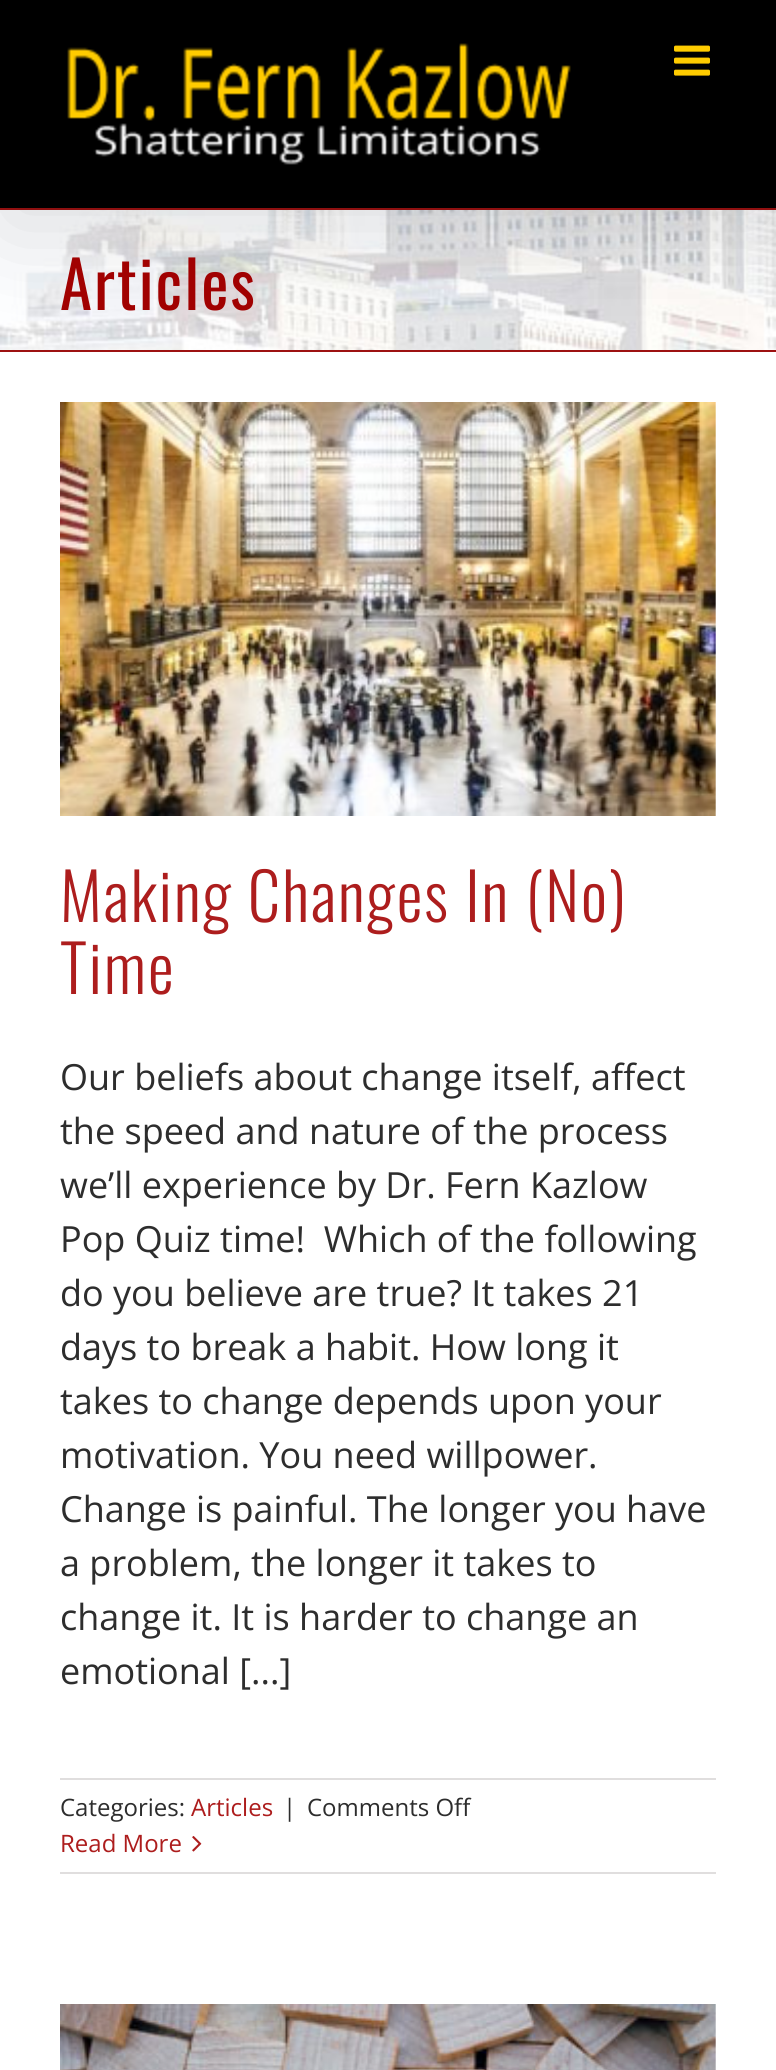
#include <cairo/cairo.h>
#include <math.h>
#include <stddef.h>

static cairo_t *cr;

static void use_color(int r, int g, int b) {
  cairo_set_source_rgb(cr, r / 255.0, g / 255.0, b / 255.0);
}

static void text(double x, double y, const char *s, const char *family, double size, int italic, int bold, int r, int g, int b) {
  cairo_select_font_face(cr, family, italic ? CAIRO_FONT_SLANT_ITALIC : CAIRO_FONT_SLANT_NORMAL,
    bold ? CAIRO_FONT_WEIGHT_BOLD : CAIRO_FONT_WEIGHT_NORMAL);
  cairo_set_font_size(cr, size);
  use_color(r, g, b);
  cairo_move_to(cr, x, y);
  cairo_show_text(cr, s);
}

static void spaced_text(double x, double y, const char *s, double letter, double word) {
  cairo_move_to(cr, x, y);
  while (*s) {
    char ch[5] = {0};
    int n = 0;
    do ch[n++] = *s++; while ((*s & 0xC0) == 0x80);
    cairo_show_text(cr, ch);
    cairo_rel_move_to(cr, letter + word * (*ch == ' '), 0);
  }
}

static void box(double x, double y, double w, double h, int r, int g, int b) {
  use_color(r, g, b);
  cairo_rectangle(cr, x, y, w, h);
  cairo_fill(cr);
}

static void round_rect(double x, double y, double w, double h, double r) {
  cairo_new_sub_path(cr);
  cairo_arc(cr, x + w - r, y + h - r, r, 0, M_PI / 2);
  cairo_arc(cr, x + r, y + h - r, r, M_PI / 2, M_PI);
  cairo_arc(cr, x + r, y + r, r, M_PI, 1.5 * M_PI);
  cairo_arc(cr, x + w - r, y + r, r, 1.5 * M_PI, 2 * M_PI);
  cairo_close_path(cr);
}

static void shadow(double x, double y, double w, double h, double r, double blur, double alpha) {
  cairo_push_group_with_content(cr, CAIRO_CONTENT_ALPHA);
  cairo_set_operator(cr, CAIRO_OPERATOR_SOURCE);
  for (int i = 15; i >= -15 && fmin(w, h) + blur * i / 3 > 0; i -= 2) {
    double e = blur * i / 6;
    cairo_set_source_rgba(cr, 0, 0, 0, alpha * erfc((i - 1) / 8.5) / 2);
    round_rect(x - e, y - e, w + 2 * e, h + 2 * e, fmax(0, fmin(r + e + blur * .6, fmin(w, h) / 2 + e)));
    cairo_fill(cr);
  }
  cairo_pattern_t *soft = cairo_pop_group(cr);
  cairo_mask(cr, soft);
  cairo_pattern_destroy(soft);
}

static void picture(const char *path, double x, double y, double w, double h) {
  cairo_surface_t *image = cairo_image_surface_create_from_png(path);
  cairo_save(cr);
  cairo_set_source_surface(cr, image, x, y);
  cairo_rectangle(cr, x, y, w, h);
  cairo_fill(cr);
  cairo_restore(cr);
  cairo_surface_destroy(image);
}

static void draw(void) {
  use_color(255, 255, 255);
  cairo_paint(cr);
  picture("img_03.png", 0, 210, 776, 140);
  box(0, 208, 776, 2, 157, 17, 17);
  box(0, 350, 776, 2, 157, 17, 17);
  use_color(0, 0, 0);
  shadow(4, 24, 768, 200, 0, 50, 0.14);
  box(0, 0, 776, 208, 0, 0, 0);
  picture("img_01.png", 67, 43, 504, 122);
  picture("img_02.png", 674, 45, 36, 31);
  picture("img_04.png", 60, 402, 656, 414);
  box(60, 1778, 656, 2, 224, 222, 222);
  box(60, 1872, 656, 2, 224, 222, 222);
  picture("img_05.png", 192, 1836, 10, 16);
  picture("img_06.png", 60, 2004, 656, 66);
  cairo_select_font_face(cr, "Oswald", CAIRO_FONT_SLANT_NORMAL, CAIRO_FONT_WEIGHT_NORMAL);
  cairo_set_font_size(cr, 64.9);
  use_color(161, 1, 1);
  spaced_text(60, 310, "Articles", 2, 0);
  cairo_select_font_face(cr, "Oswald Light", CAIRO_FONT_SLANT_NORMAL, CAIRO_FONT_WEIGHT_NORMAL);
  use_color(173, 29, 29);
  spaced_text(60, 922, "Making Changes In (No)", 2, 0);
  spaced_text(60, 994, "Time", 2, 0);
  text(60, 1090, "Our beliefs about change itself, affect", "Open Sans", 36, 0, 0, 45, 45, 45);
  text(60, 1144, "the speed and nature of the process", "Open Sans", 36, 0, 0, 45, 45, 45);
  text(60, 1198, "we’ll experience by Dr. Fern Kazlow", "Open Sans", 36, 0, 0, 45, 45, 45);
  text(60, 1252, "Pop Quiz time!  Which of the following", "Open Sans", 36, 0, 0, 45, 45, 45);
  text(60, 1306, "do you believe are true? It takes 21", "Open Sans", 36, 0, 0, 45, 45, 45);
  text(60, 1360, "days to break a habit. How long it", "Open Sans", 36, 0, 0, 45, 45, 45);
  text(60, 1414, "takes to change depends upon your", "Open Sans", 36, 0, 0, 45, 45, 45);
  text(60, 1468, "motivation. You need willpower.", "Open Sans", 36, 0, 0, 45, 45, 45);
  text(60, 1522, "Change is painful. The longer you have", "Open Sans", 36, 0, 0, 45, 45, 45);
  text(60, 1576, "a problem, the longer it takes to", "Open Sans", 36, 0, 0, 45, 45, 45);
  text(60, 1630, "change it. It is harder to change an", "Open Sans", 36, 0, 0, 45, 45, 45);
  text(60, 1684, "emotional [...]", "Open Sans", 36, 0, 0, 45, 45, 45);
  text(60, 1816, "Categories:", "Open Sans", 24, 0, 0, 45, 45, 45);
  text(191, 1816, "Articles", "Open Sans", 24, 0, 0, 173, 29, 29);
  text(283, 1816, "|", "Open Sans", 24, 0, 0, 45, 45, 45);
  text(307, 1816, "Comments Off", "Open Sans", 24, 0, 0, 45, 45, 45);
  text(60, 1852, "Read More", "Open Sans", 24, 0, 0, 173, 29, 29);
}

int main(void) {
  cairo_surface_t *surface = cairo_image_surface_create(CAIRO_FORMAT_RGB24, 776, 2070);
  cr = cairo_create(surface);
  cairo_font_options_t *options = cairo_font_options_create();
  cairo_font_options_set_hint_metrics(options, CAIRO_HINT_METRICS_OFF);
  cairo_font_options_set_hint_style(options, CAIRO_HINT_STYLE_NONE);
  cairo_set_font_options(cr, options);
  cairo_set_miter_limit(cr, 4);
  draw();
  cairo_surface_write_to_png(surface, "out.png");
  cairo_font_options_destroy(options);
  cairo_destroy(cr);
  cairo_surface_destroy(surface);
  return 0;
}
